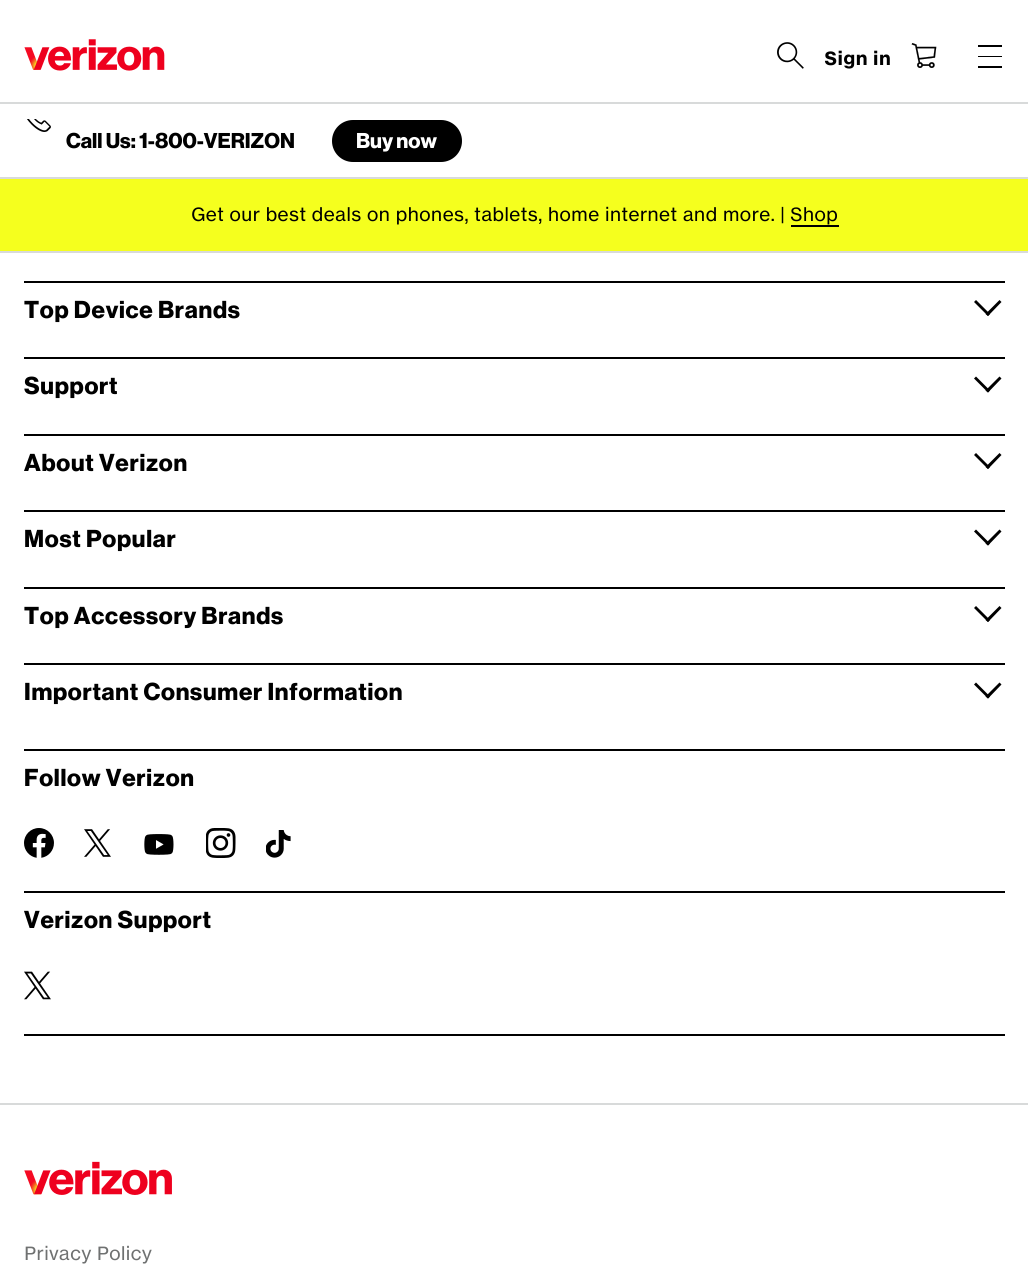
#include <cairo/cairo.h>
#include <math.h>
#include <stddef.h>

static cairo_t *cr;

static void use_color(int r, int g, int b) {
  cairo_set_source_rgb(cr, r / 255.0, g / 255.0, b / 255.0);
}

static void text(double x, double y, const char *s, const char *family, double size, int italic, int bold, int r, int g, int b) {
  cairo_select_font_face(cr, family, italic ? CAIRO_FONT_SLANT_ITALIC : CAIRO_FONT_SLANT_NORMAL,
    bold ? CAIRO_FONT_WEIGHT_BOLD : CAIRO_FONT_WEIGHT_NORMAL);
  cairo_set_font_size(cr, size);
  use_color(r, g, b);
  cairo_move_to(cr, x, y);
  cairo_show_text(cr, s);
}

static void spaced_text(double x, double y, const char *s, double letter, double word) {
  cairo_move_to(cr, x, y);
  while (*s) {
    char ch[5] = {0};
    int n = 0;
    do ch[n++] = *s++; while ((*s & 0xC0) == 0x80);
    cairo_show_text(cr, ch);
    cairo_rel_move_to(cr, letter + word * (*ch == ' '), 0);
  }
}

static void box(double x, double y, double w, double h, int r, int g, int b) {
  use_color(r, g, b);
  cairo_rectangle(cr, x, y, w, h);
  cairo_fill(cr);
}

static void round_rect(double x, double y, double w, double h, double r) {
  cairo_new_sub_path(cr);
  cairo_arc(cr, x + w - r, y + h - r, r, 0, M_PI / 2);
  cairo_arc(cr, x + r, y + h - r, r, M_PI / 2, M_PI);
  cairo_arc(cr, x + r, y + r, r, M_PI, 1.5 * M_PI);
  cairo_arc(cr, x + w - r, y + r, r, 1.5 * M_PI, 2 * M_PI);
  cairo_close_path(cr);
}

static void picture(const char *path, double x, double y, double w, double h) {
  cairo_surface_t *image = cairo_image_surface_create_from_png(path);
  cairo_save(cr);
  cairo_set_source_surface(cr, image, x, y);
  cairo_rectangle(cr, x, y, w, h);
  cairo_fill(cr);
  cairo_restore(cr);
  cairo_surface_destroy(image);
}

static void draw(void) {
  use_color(255, 255, 255);
  cairo_paint(cr);
  box(0, 251, 1028, 2, 216, 218, 218);
  picture("img_01.png", 24, 39, 141, 32);
  picture("img_02.png", 777, 42, 27, 27);
  picture("img_03.png", 911, 43, 26, 25);
  box(978, 45, 24, 2, 0, 0, 0);
  box(978, 66, 24, 2, 0, 0, 0);
  box(978, 56, 24, 1, 0, 0, 0);
  box(0, 102, 1028, 2, 216, 218, 218);
  picture("img_04.png", 27, 119, 24, 13);
  use_color(0, 0, 0);
  round_rect(333, 121, 128, 40, 20);
  cairo_fill_preserve(cr);
  cairo_stroke(cr);
  box(0, 179, 1028, 72, 245, 255, 30);
  box(0, 177, 1028, 2, 216, 218, 218);
  box(791, 225, 48, 2, 0, 0, 0);
  box(24, 281, 981, 2, 0, 0, 0);
  cairo_new_path(cr);
  cairo_move_to(cr, 999.5, 300);
  cairo_line_to(cr, 1001.5, 302);
  cairo_line_to(cr, 988, 316);
  cairo_line_to(cr, 985.5, 314);
  cairo_close_path(cr);
  cairo_fill(cr);
  cairo_new_path(cr);
  cairo_move_to(cr, 976, 300);
  cairo_line_to(cr, 990, 314);
  cairo_line_to(cr, 988, 316);
  cairo_line_to(cr, 974, 302);
  cairo_close_path(cr);
  cairo_fill(cr);
  box(24, 357, 981, 2, 0, 0, 0);
  cairo_new_path(cr);
  cairo_move_to(cr, 999.5, 376.5);
  cairo_line_to(cr, 1001.5, 378.5);
  cairo_line_to(cr, 988, 392.5);
  cairo_line_to(cr, 985.5, 390.5);
  cairo_close_path(cr);
  cairo_fill(cr);
  cairo_new_path(cr);
  cairo_move_to(cr, 976, 376.5);
  cairo_line_to(cr, 990, 390.5);
  cairo_line_to(cr, 988, 392.5);
  cairo_line_to(cr, 974, 378.5);
  cairo_close_path(cr);
  cairo_fill(cr);
  box(24, 434, 981, 2, 0, 0, 0);
  cairo_new_path(cr);
  cairo_move_to(cr, 999.5, 453);
  cairo_line_to(cr, 1001.5, 455);
  cairo_line_to(cr, 988, 469);
  cairo_line_to(cr, 985.5, 467);
  cairo_close_path(cr);
  cairo_fill(cr);
  cairo_new_path(cr);
  cairo_move_to(cr, 976, 453);
  cairo_line_to(cr, 990, 467);
  cairo_line_to(cr, 988, 469);
  cairo_line_to(cr, 974, 455);
  cairo_close_path(cr);
  cairo_fill(cr);
  box(24, 510, 981, 2, 0, 0, 0);
  cairo_new_path(cr);
  cairo_move_to(cr, 999.5, 529.5);
  cairo_line_to(cr, 1001.5, 531.5);
  cairo_line_to(cr, 988, 545.5);
  cairo_line_to(cr, 985.5, 543.5);
  cairo_close_path(cr);
  cairo_fill(cr);
  cairo_new_path(cr);
  cairo_move_to(cr, 976, 529.5);
  cairo_line_to(cr, 990, 543.5);
  cairo_line_to(cr, 988, 545.5);
  cairo_line_to(cr, 974, 531.5);
  cairo_close_path(cr);
  cairo_fill(cr);
  box(24, 587, 981, 2, 0, 0, 0);
  cairo_new_path(cr);
  cairo_move_to(cr, 999.5, 606);
  cairo_line_to(cr, 1001.5, 608);
  cairo_line_to(cr, 988, 622);
  cairo_line_to(cr, 985.5, 620);
  cairo_close_path(cr);
  cairo_fill(cr);
  cairo_new_path(cr);
  cairo_move_to(cr, 976, 606);
  cairo_line_to(cr, 990, 620);
  cairo_line_to(cr, 988, 622);
  cairo_line_to(cr, 974, 608);
  cairo_close_path(cr);
  cairo_fill(cr);
  box(24, 663, 981, 2, 0, 0, 0);
  cairo_new_path(cr);
  cairo_move_to(cr, 999.5, 682.5);
  cairo_line_to(cr, 1001.5, 684.5);
  cairo_line_to(cr, 988, 698.5);
  cairo_line_to(cr, 985.5, 696.5);
  cairo_close_path(cr);
  cairo_fill(cr);
  cairo_new_path(cr);
  cairo_move_to(cr, 976, 682.5);
  cairo_line_to(cr, 990, 696.5);
  cairo_line_to(cr, 988, 698.5);
  cairo_line_to(cr, 974, 684.5);
  cairo_close_path(cr);
  cairo_fill(cr);
  box(24, 749, 981, 2, 0, 0, 0);
  picture("img_05.png", 24, 828, 30, 30);
  picture("img_06.png", 84, 829, 27, 28);
  picture("img_07.png", 144, 834, 30, 21);
  picture("img_08.png", 206, 828, 30, 30);
  picture("img_09.png", 266, 830, 25, 28);
  box(24, 1034, 981, 2, 0, 0, 0);
  box(24, 891, 981, 2, 0, 0, 0);
  picture("img_10.png", 24, 971, 27, 29);
  box(0, 1103, 1028, 2, 216, 218, 218);
  picture("img_11.png", 24, 1161, 148, 34);
  text(824, 65, "Sign in", "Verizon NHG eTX", 18, 0, 1, 0, 0, 0);
  text(66, 148, "Call Us: 1-800-VERIZON", "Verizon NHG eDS", 21, 0, 1, 0, 0, 0);
  text(356, 148, "Buy now", "Verizon NHG eDS", 21, 0, 1, 255, 255, 255);
  text(191, 221, "Get our best deals on phones, tablets, home internet and more. | Shop", "Verizon NHG eTX", 18, 0, 0, 0, 0, 0);
  cairo_select_font_face(cr, "Verizon NHG eDS", CAIRO_FONT_SLANT_NORMAL, CAIRO_FONT_WEIGHT_BOLD);
  cairo_set_font_size(cr, 24);
  spaced_text(24, 318, "Top Device Brands", 0.75, 0);
  spaced_text(24, 394, "Support", 0.75, 0);
  spaced_text(24, 471, "About Verizon", 0.75, 0);
  spaced_text(24, 547, "Most Popular", 0.75, 0);
  spaced_text(24, 624, "Top Accessory Brands", 0.75, 0);
  spaced_text(24, 700, "Important Consumer Information", 0.75, 0);
  spaced_text(24, 786, "Follow Verizon", 0.75, 0);
  spaced_text(24, 928, "Verizon Support", 0.75, 0);
  text(24, 1260, "Privacy Policy", "Verizon NHG eTX", 18, 0, 0, 111, 113, 113);
}

int main(void) {
  cairo_surface_t *surface = cairo_image_surface_create(CAIRO_FORMAT_RGB24, 1028, 1276);
  cr = cairo_create(surface);
  cairo_font_options_t *options = cairo_font_options_create();
  cairo_font_options_set_hint_metrics(options, CAIRO_HINT_METRICS_OFF);
  cairo_font_options_set_hint_style(options, CAIRO_HINT_STYLE_NONE);
  cairo_set_font_options(cr, options);
  cairo_set_miter_limit(cr, 4);
  draw();
  cairo_surface_write_to_png(surface, "out.png");
  cairo_font_options_destroy(options);
  cairo_destroy(cr);
  cairo_surface_destroy(surface);
  return 0;
}
